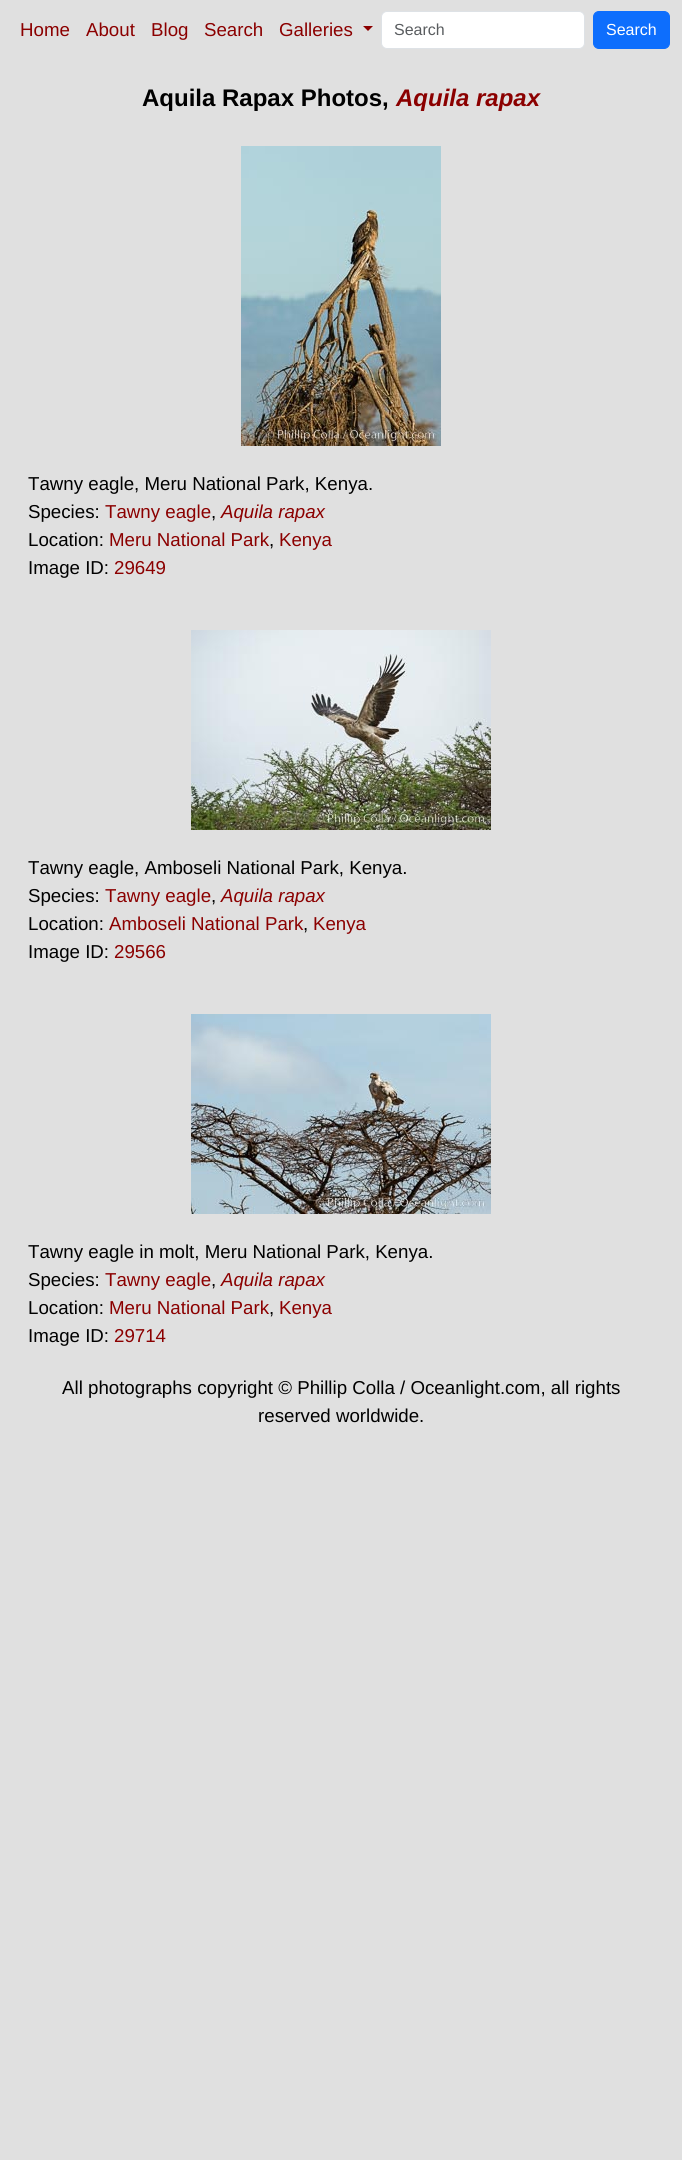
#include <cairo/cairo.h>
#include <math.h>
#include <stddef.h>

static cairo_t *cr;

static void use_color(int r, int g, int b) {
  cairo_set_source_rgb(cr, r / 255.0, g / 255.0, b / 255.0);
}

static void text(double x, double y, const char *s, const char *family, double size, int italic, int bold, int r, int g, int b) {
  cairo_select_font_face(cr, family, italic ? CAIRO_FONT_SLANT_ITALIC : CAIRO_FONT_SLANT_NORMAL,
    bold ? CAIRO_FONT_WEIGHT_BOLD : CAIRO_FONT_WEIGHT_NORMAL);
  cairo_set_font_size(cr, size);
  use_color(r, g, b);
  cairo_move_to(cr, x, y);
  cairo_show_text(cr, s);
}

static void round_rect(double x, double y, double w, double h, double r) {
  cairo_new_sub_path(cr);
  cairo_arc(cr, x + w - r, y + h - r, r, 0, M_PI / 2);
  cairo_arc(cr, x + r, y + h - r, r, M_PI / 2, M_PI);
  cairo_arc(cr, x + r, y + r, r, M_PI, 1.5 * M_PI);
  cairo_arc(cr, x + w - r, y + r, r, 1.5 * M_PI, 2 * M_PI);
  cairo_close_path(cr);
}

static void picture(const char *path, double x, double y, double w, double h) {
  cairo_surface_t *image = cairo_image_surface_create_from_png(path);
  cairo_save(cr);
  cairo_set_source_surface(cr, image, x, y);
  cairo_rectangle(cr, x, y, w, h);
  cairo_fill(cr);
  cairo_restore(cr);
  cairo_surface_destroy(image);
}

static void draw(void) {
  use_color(224, 224, 224);
  cairo_paint(cr);
  use_color(139, 0, 0);
  cairo_new_path(cr);
  cairo_move_to(cr, 363, 26);
  cairo_line_to(cr, 373, 26);
  cairo_line_to(cr, 368, 31);
  cairo_close_path(cr);
  cairo_fill(cr);
  use_color(255, 255, 255);
  round_rect(381.5, 11.5, 203, 37, 5.5);
  cairo_fill_preserve(cr);
  use_color(222, 226, 230);
  cairo_set_line_width(cr, 1);
  cairo_stroke(cr);
  use_color(13, 110, 253);
  round_rect(593.5, 11.5, 76, 37, 5.5);
  cairo_fill_preserve(cr);
  cairo_stroke(cr);
  picture("img_01.png", 241, 146, 200, 300);
  picture("img_02.png", 191, 630, 300, 200);
  picture("img_03.png", 191, 1014, 300, 200);
  text(20, 36, "Home", "Liberation Sans", 18.7, 0, 0, 139, 0, 0);
  text(86, 36, "About", "Liberation Sans", 18.7, 0, 0, 139, 0, 0);
  text(151, 36, "Blog", "Liberation Sans", 18.7, 0, 0, 139, 0, 0);
  text(204, 36, "Search", "Liberation Sans", 18.7, 0, 0, 139, 0, 0);
  text(279, 36, "Galleries", "Liberation Sans", 18.7, 0, 0, 139, 0, 0);
  text(394, 35, "Search", "Liberation Sans", 16, 0, 0, 89, 92, 95);
  text(606, 35, "Search", "Liberation Sans", 16, 0, 0, 255, 255, 255);
  text(142, 106, "Aquila Rapax Photos,", "Liberation Sans", 24, 0, 1, 0, 0, 0);
  text(396, 106, "Aquila rapax", "Liberation Sans", 24, 1, 1, 139, 0, 0);
  text(28, 490, "Tawny eagle, Meru National Park, Kenya.", "Liberation Sans", 18.7, 0, 0, 0, 0, 0);
  text(28, 518, "Species:", "Liberation Sans", 18.7, 0, 0, 0, 0, 0);
  text(105, 518, "Tawny eagle", "Liberation Sans", 18.7, 0, 0, 139, 0, 0);
  text(211, 518, ",", "Liberation Sans", 18.7, 0, 0, 0, 0, 0);
  text(221, 518, "Aquila rapax", "Liberation Sans", 18.7, 1, 0, 139, 0, 0);
  text(28, 546, "Location:", "Liberation Sans", 18.7, 0, 0, 0, 0, 0);
  text(109, 546, "Meru National Park", "Liberation Sans", 18.7, 0, 0, 139, 0, 0);
  text(269, 546, ",", "Liberation Sans", 18.7, 0, 0, 0, 0, 0);
  text(279, 546, "Kenya", "Liberation Sans", 18.7, 0, 0, 139, 0, 0);
  text(28, 574, "Image ID:", "Liberation Sans", 18.7, 0, 0, 0, 0, 0);
  text(114, 574, "29649", "Liberation Sans", 18.7, 0, 0, 139, 0, 0);
  text(28, 874, "Tawny eagle, Amboseli National Park, Kenya.", "Liberation Sans", 18.7, 0, 0, 0, 0, 0);
  text(28, 902, "Species:", "Liberation Sans", 18.7, 0, 0, 0, 0, 0);
  text(105, 902, "Tawny eagle", "Liberation Sans", 18.7, 0, 0, 139, 0, 0);
  text(211, 902, ",", "Liberation Sans", 18.7, 0, 0, 0, 0, 0);
  text(221, 902, "Aquila rapax", "Liberation Sans", 18.7, 1, 0, 139, 0, 0);
  text(28, 930, "Location:", "Liberation Sans", 18.7, 0, 0, 0, 0, 0);
  text(109, 930, "Amboseli National Park", "Liberation Sans", 18.7, 0, 0, 139, 0, 0);
  text(303, 930, ",", "Liberation Sans", 18.7, 0, 0, 0, 0, 0);
  text(313, 930, "Kenya", "Liberation Sans", 18.7, 0, 0, 139, 0, 0);
  text(28, 958, "Image ID:", "Liberation Sans", 18.7, 0, 0, 0, 0, 0);
  text(114, 958, "29566", "Liberation Sans", 18.7, 0, 0, 139, 0, 0);
  text(28, 1258, "Tawny eagle in molt, Meru National Park, Kenya.", "Liberation Sans", 18.7, 0, 0, 0, 0, 0);
  text(28, 1286, "Species:", "Liberation Sans", 18.7, 0, 0, 0, 0, 0);
  text(105, 1286, "Tawny eagle", "Liberation Sans", 18.7, 0, 0, 139, 0, 0);
  text(211, 1286, ",", "Liberation Sans", 18.7, 0, 0, 0, 0, 0);
  text(221, 1286, "Aquila rapax", "Liberation Sans", 18.7, 1, 0, 139, 0, 0);
  text(28, 1314, "Location:", "Liberation Sans", 18.7, 0, 0, 0, 0, 0);
  text(109, 1314, "Meru National Park", "Liberation Sans", 18.7, 0, 0, 139, 0, 0);
  text(269, 1314, ",", "Liberation Sans", 18.7, 0, 0, 0, 0, 0);
  text(279, 1314, "Kenya", "Liberation Sans", 18.7, 0, 0, 139, 0, 0);
  text(28, 1342, "Image ID:", "Liberation Sans", 18.7, 0, 0, 0, 0, 0);
  text(114, 1342, "29714", "Liberation Sans", 18.7, 0, 0, 139, 0, 0);
  text(62, 1394, "All photographs copyright © Phillip Colla / Oceanlight.com, all rights", "Liberation Sans", 18.7, 0, 0, 0, 0, 0);
  text(258, 1422, "reserved worldwide.", "Liberation Sans", 18.7, 0, 0, 0, 0, 0);
}

int main(void) {
  cairo_surface_t *surface = cairo_image_surface_create(CAIRO_FORMAT_RGB24, 682, 2160);
  cr = cairo_create(surface);
  cairo_font_options_t *options = cairo_font_options_create();
  cairo_font_options_set_hint_metrics(options, CAIRO_HINT_METRICS_OFF);
  cairo_font_options_set_hint_style(options, CAIRO_HINT_STYLE_NONE);
  cairo_set_font_options(cr, options);
  cairo_set_miter_limit(cr, 4);
  draw();
  cairo_surface_write_to_png(surface, "out.png");
  cairo_font_options_destroy(options);
  cairo_destroy(cr);
  cairo_surface_destroy(surface);
  return 0;
}
